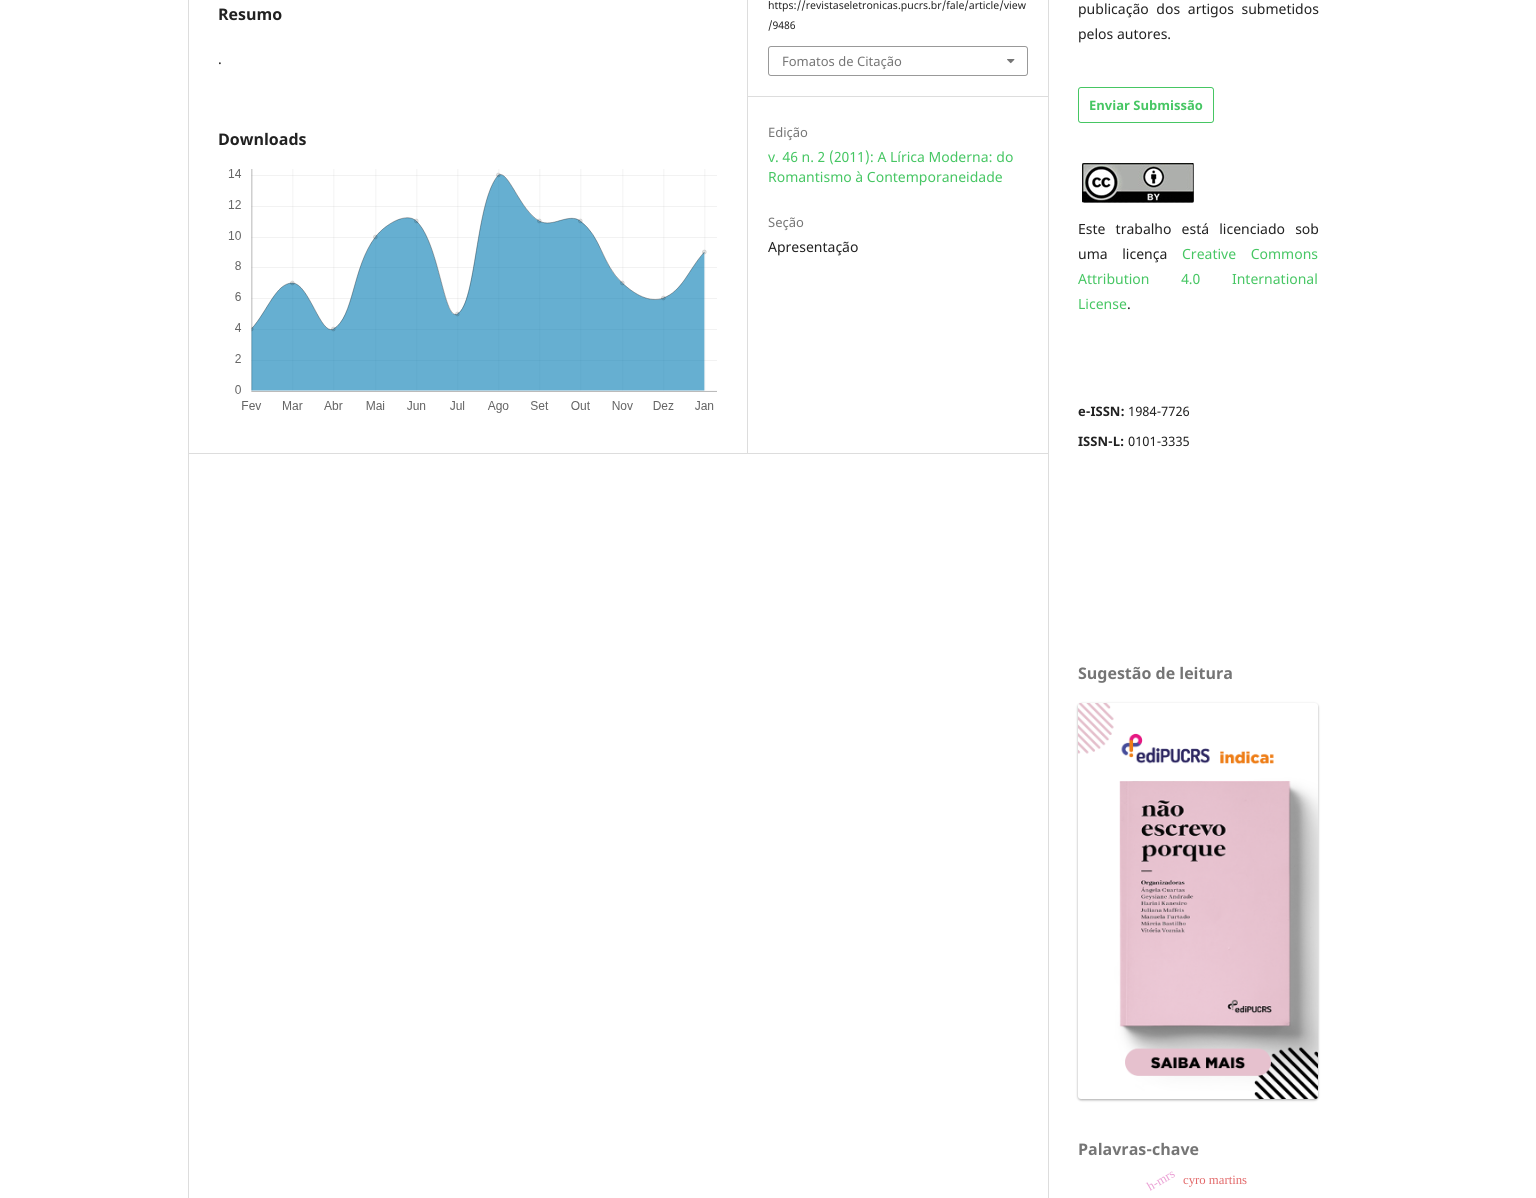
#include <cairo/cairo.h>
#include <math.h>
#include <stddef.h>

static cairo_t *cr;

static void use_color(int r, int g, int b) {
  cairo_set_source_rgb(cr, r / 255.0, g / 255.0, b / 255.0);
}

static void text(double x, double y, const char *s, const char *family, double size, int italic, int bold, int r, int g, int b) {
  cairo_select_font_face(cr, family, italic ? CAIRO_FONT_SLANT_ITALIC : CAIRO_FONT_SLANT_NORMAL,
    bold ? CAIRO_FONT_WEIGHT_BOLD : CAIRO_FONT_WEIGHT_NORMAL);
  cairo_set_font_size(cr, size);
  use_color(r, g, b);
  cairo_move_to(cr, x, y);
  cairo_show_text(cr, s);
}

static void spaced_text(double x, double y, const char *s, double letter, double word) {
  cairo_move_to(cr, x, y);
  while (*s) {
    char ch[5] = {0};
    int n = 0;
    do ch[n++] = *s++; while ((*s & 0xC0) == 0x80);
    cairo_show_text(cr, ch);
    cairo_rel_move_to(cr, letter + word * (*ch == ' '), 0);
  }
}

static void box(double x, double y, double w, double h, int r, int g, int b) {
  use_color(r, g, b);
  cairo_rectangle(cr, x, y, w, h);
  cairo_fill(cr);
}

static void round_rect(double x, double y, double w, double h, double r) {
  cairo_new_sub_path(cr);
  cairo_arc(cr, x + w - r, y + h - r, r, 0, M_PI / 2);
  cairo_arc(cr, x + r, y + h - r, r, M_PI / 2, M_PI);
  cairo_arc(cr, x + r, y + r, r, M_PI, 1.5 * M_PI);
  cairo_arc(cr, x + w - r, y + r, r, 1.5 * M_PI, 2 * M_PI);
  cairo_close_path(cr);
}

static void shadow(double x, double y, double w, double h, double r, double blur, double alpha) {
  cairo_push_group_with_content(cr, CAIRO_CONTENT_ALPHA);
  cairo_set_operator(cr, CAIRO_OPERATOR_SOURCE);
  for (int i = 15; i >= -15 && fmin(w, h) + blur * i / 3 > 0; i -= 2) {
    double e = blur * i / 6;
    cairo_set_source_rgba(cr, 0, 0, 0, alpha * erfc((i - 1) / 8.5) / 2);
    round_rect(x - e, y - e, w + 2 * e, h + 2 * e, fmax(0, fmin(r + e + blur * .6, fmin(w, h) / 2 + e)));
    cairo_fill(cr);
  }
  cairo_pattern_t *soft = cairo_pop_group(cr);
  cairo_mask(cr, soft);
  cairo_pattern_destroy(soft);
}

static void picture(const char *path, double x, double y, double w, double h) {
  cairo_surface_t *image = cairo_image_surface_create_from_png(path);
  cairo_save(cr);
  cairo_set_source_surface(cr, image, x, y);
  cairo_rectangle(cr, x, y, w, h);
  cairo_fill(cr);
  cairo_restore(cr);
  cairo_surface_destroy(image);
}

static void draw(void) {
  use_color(255, 255, 255);
  cairo_paint(cr);
  box(188, 453, 860, 1, 221, 221, 221);
  box(188, 0, 1, 1198, 221, 221, 221);
  box(747, 0, 1, 453, 221, 221, 221);
  picture("img_01.png", 228, 169, 489, 244);
  box(748, 96, 300, 1, 221, 221, 221);
  round_rect(768.5, 46.5, 259, 29, 2.5);
  use_color(153, 153, 153);
  cairo_set_line_width(cr, 1);
  cairo_stroke(cr);
  picture("img_02.png", 1007, 59, 8, 5);
  box(1048, 0, 1, 1198, 221, 221, 221);
  round_rect(1078.5, 87.5, 135, 35, 2.5);
  use_color(70, 198, 99);
  cairo_stroke(cr);
  picture("img_03.png", 1082, 163, 112, 40);
  use_color(0, 0, 0);
  shadow(1078, 704, 240, 396, 3, 1.5, 0.12);
  shadow(1078, 704, 240, 396, 3, 1, 0.24);
  picture("img_04.png", 1078, 703, 240, 396);
  text(218, 20, "Resumo", "Noto Sans", 16, 0, 1, 33, 33, 33);
  text(218, 64, ".", "Noto Sans", 14, 0, 0, 33, 33, 33);
  text(218, 145, "Downloads", "Noto Sans", 16, 0, 1, 33, 33, 33);
  text(768, 9, "https://revistaseletronicas.pucrs.br/fale/article/view", "Noto Sans", 10.5, 0, 0, 33, 33, 33);
  text(768, 29, "/9486", "Noto Sans", 10.5, 0, 0, 33, 33, 33);
  text(782, 66, "Fomatos de Citação", "Noto Sans", 13, 0, 0, 117, 117, 117);
  text(768, 137, "Edição", "Noto Sans", 13, 0, 0, 117, 117, 117);
  text(768, 162, "v. 46 n. 2 (2011): A Lírica Moderna: do", "Noto Sans", 14, 0, 0, 70, 198, 99);
  text(768, 182, "Romantismo à Contemporaneidade", "Noto Sans", 14, 0, 0, 70, 198, 99);
  text(768, 227, "Seção", "Noto Sans", 13, 0, 0, 117, 117, 117);
  text(768, 252, "Apresentação", "Noto Sans", 14, 0, 0, 33, 33, 33);
  spaced_text(1078, 14, "publicação dos artigos submetidos", 0, 4);
  text(1078, 39, "pelos autores.", "Noto Sans", 14, 0, 0, 33, 33, 33);
  text(1089, 110, "Enviar Submissão", "Noto Sans", 13, 0, 1, 70, 198, 99);
  cairo_select_font_face(cr, "Noto Sans", CAIRO_FONT_SLANT_NORMAL, CAIRO_FONT_WEIGHT_NORMAL);
  cairo_set_font_size(cr, 14);
  use_color(33, 33, 33);
  spaced_text(1078, 234, "Este trabalho está licenciado sob", 0, 6.5);
  spaced_text(1078, 259, "uma licença", 0, 11);
  use_color(70, 198, 99);
  spaced_text(1182, 259, "Creative Commons", 0, 11);
  spaced_text(1078, 284, "Attribution 4.0 International", 0, 28);
  text(1078, 309, "License", "Noto Sans", 14, 0, 0, 70, 198, 99);
  text(1127, 309, ".", "Noto Sans", 14, 0, 0, 33, 33, 33);
  text(1078, 416, "e-ISSN:", "Noto Sans", 13, 0, 1, 33, 33, 33);
  text(1128, 416, "1984-7726", "Noto Sans", 13, 0, 0, 33, 33, 33);
  text(1078, 446, "ISSN-L:", "Noto Sans", 13, 0, 1, 33, 33, 33);
  text(1128, 446, "0101-3335", "Noto Sans", 13, 0, 0, 33, 33, 33);
  text(1078, 679, "Sugestão de leitura", "Noto Sans", 16, 0, 1, 117, 117, 117);
  text(1078, 1155, "Palavras-chave", "Noto Sans", 16, 0, 1, 117, 117, 117);
  cairo_save(cr);
  cairo_translate(cr, 1150, 1191);
  cairo_rotate(cr, -30 * M_PI / 180);
  text(0, 0, "h-mrs", "Liberation Serif", 12.75, 0, 0, 235, 160, 212);
  cairo_restore(cr);
  text(1183, 1184, "cyro martins", "Liberation Serif", 12.75, 0, 0, 226, 104, 105);
}

int main(void) {
  cairo_surface_t *surface = cairo_image_surface_create(CAIRO_FORMAT_RGB24, 1536, 1198);
  cr = cairo_create(surface);
  cairo_font_options_t *options = cairo_font_options_create();
  cairo_font_options_set_hint_metrics(options, CAIRO_HINT_METRICS_OFF);
  cairo_font_options_set_hint_style(options, CAIRO_HINT_STYLE_NONE);
  cairo_set_font_options(cr, options);
  cairo_set_miter_limit(cr, 4);
  draw();
  cairo_surface_write_to_png(surface, "out.png");
  cairo_font_options_destroy(options);
  cairo_destroy(cr);
  cairo_surface_destroy(surface);
  return 0;
}
